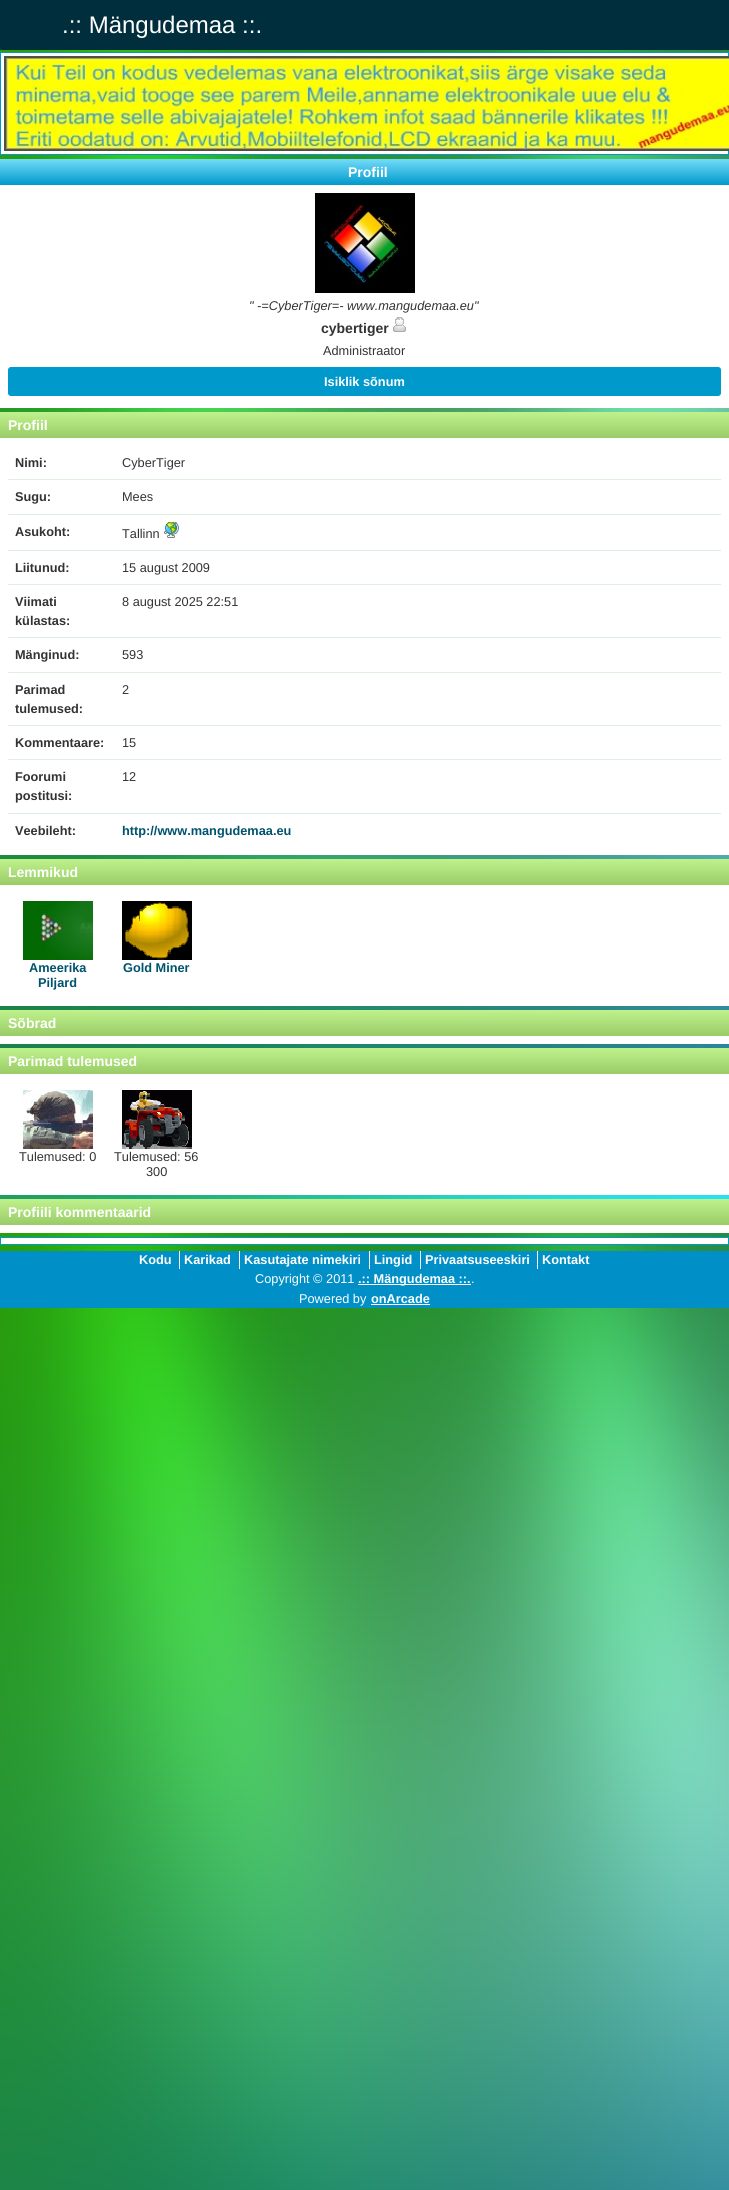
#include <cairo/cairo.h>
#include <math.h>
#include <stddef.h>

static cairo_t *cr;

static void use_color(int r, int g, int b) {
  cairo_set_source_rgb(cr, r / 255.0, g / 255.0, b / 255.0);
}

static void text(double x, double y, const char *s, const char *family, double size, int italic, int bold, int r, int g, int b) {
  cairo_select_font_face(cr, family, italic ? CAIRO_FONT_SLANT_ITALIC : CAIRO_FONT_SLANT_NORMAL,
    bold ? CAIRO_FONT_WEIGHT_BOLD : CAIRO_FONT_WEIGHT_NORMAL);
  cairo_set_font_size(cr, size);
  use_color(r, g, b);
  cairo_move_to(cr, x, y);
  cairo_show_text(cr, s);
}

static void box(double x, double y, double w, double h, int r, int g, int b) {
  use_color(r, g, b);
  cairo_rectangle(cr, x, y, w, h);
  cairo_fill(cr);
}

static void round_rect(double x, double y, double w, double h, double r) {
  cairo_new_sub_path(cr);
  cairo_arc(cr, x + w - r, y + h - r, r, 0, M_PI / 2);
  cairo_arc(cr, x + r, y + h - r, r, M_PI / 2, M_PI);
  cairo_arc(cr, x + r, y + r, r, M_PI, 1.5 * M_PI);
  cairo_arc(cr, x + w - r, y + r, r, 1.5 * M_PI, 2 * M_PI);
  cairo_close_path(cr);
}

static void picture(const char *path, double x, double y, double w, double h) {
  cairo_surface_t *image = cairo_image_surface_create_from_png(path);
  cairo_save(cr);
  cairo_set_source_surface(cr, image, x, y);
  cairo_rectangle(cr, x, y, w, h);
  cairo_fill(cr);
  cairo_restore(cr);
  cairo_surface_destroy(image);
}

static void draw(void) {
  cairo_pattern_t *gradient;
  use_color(255, 255, 255);
  cairo_paint(cr);
  picture("img_01.png", 0, 50, 729, 2140);
  box(0, 0, 729, 50, 0, 46, 61);
  use_color(255, 255, 255);
  cairo_rectangle(cr, 0.5, 52.5, 728, 102);
  cairo_fill_preserve(cr);
  use_color(0, 153, 204);
  cairo_set_line_width(cr, 1);
  cairo_stroke(cr);
  picture("img_02.png", 4, 56, 725, 95);
  box(0, 185, 729, 223, 255, 255, 255);
  gradient = cairo_pattern_create_linear(365, 159, 365, 185);
  cairo_pattern_add_color_stop_rgba(gradient, 0, 0.451, 0.863, 0.973, 1);
  cairo_pattern_add_color_stop_rgba(gradient, 1, 0, 0.6, 0.8, 1);
  cairo_set_source(cr, gradient);
  cairo_pattern_destroy(gradient);
  cairo_rectangle(cr, 0, 159, 729, 26);
  cairo_fill(cr);
  picture("img_03.png", 315, 193, 100, 100);
  picture("img_04.png", 393, 317, 13, 15);
  use_color(0, 153, 204);
  round_rect(8.5, 367.5, 712, 28, 2.5);
  cairo_fill_preserve(cr);
  cairo_stroke(cr);
  box(0, 438, 729, 417, 255, 255, 255);
  gradient = cairo_pattern_create_linear(365, 412, 365, 438);
  cairo_pattern_add_color_stop_rgba(gradient, 0, 0.749, 0.949, 0.549, 1);
  cairo_pattern_add_color_stop_rgba(gradient, 1, 0.6, 0.8, 0.4, 1);
  cairo_set_source(cr, gradient);
  cairo_pattern_destroy(gradient);
  cairo_rectangle(cr, 0, 412, 729, 26);
  cairo_fill(cr);
  box(8, 479, 713, 1, 224, 238, 224);
  box(8, 514, 713, 1, 224, 238, 224);
  box(8, 550, 713, 1, 224, 238, 224);
  picture("img_05.png", 164, 522, 15, 16);
  box(8, 584, 713, 1, 224, 238, 224);
  box(8, 637, 713, 1, 224, 238, 224);
  box(8, 672, 713, 1, 224, 238, 224);
  box(8, 725, 713, 1, 224, 238, 224);
  box(8, 759, 713, 1, 224, 238, 224);
  box(8, 813, 713, 1, 224, 238, 224);
  box(0, 885, 729, 121, 255, 255, 255);
  gradient = cairo_pattern_create_linear(365, 859, 365, 885);
  cairo_pattern_add_color_stop_rgba(gradient, 0, 0.749, 0.949, 0.549, 1);
  cairo_pattern_add_color_stop_rgba(gradient, 1, 0.6, 0.8, 0.4, 1);
  cairo_set_source(cr, gradient);
  cairo_pattern_destroy(gradient);
  cairo_rectangle(cr, 0, 859, 729, 26);
  cairo_fill(cr);
  picture("img_06.png", 23, 901, 70, 59);
  picture("img_07.png", 122, 901, 70, 59);
  box(0, 1036, 729, 8, 255, 255, 255);
  gradient = cairo_pattern_create_linear(365, 1010, 365, 1036);
  cairo_pattern_add_color_stop_rgba(gradient, 0, 0.749, 0.949, 0.549, 1);
  cairo_pattern_add_color_stop_rgba(gradient, 1, 0.6, 0.8, 0.4, 1);
  cairo_set_source(cr, gradient);
  cairo_pattern_destroy(gradient);
  cairo_rectangle(cr, 0, 1010, 729, 26);
  cairo_fill(cr);
  box(0, 1074, 729, 121, 255, 255, 255);
  gradient = cairo_pattern_create_linear(365, 1048, 365, 1074);
  cairo_pattern_add_color_stop_rgba(gradient, 0, 0.749, 0.949, 0.549, 1);
  cairo_pattern_add_color_stop_rgba(gradient, 1, 0.6, 0.8, 0.4, 1);
  cairo_set_source(cr, gradient);
  cairo_pattern_destroy(gradient);
  cairo_rectangle(cr, 0, 1048, 729, 26);
  cairo_fill(cr);
  picture("img_08.png", 23, 1090, 70, 59);
  picture("img_09.png", 122, 1090, 70, 59);
  box(0, 1225, 729, 8, 255, 255, 255);
  gradient = cairo_pattern_create_linear(365, 1199, 365, 1225);
  cairo_pattern_add_color_stop_rgba(gradient, 0, 0.749, 0.949, 0.549, 1);
  cairo_pattern_add_color_stop_rgba(gradient, 1, 0.6, 0.8, 0.4, 1);
  cairo_set_source(cr, gradient);
  cairo_pattern_destroy(gradient);
  cairo_rectangle(cr, 0, 1199, 729, 26);
  cairo_fill(cr);
  use_color(255, 255, 255);
  cairo_rectangle(cr, 0.5, 1237.5, 728, 7);
  cairo_fill_preserve(cr);
  use_color(0, 153, 204);
  cairo_stroke(cr);
  box(0, 1251, 729, 57, 0, 144, 199);
  box(179, 1251, 1, 18, 255, 255, 255);
  box(239, 1251, 1, 18, 255, 255, 255);
  box(369, 1251, 1, 18, 255, 255, 255);
  box(420, 1251, 1, 18, 255, 255, 255);
  box(537, 1251, 1, 18, 255, 255, 255);
  box(358, 1284, 113, 1, 255, 255, 255);
  box(371, 1304, 59, 1, 255, 255, 255);
  text(62, 33, ".:: Mängudemaa ::.", "Liberation Sans", 24, 0, 0, 255, 255, 255);
  text(348, 177, "Profiil", "Liberation Sans", 14, 0, 1, 255, 255, 255);
  text(249, 310, "\" -=CyberTiger=- www.mangudemaa.eu\"", "Liberation Sans", 12.75, 1, 0, 51, 51, 51);
  text(321, 333, "cybertiger", "Liberation Sans", 14, 0, 1, 51, 51, 51);
  text(323, 355, "Administraator", "Liberation Sans", 12.75, 0, 0, 51, 51, 51);
  text(324, 386, "Isiklik sõnum", "Liberation Sans", 12.75, 0, 1, 255, 255, 255);
  text(8, 430, "Profiil", "Liberation Sans", 14, 0, 1, 255, 255, 255);
  text(15, 467, "Nimi:", "Liberation Sans", 12.75, 0, 1, 51, 51, 51);
  text(122, 467, "CyberTiger", "Liberation Sans", 12.75, 0, 0, 51, 51, 51);
  text(15, 501, "Sugu:", "Liberation Sans", 12.75, 0, 1, 51, 51, 51);
  text(122, 501, "Mees", "Liberation Sans", 12.75, 0, 0, 51, 51, 51);
  text(15, 536, "Asukoht:", "Liberation Sans", 12.75, 0, 1, 51, 51, 51);
  text(122, 538, "Tallinn", "Liberation Sans", 12.75, 0, 0, 51, 51, 51);
  text(15, 572, "Liitunud:", "Liberation Sans", 12.75, 0, 1, 51, 51, 51);
  text(122, 572, "15 august 2009", "Liberation Sans", 12.75, 0, 0, 51, 51, 51);
  text(15, 606, "Viimati", "Liberation Sans", 12.75, 0, 1, 51, 51, 51);
  text(15, 625, "külastas:", "Liberation Sans", 12.75, 0, 1, 51, 51, 51);
  text(122, 606, "8 august 2025 22:51", "Liberation Sans", 12.75, 0, 0, 51, 51, 51);
  text(15, 659, "Mänginud:", "Liberation Sans", 12.75, 0, 1, 51, 51, 51);
  text(122, 659, "593", "Liberation Sans", 12.75, 0, 0, 51, 51, 51);
  text(15, 694, "Parimad", "Liberation Sans", 12.75, 0, 1, 51, 51, 51);
  text(15, 713, "tulemused:", "Liberation Sans", 12.75, 0, 1, 51, 51, 51);
  text(122, 694, "2", "Liberation Sans", 12.75, 0, 0, 51, 51, 51);
  text(15, 747, "Kommentaare:", "Liberation Sans", 12.75, 0, 1, 51, 51, 51);
  text(122, 747, "15", "Liberation Sans", 12.75, 0, 0, 51, 51, 51);
  text(15, 781, "Foorumi", "Liberation Sans", 12.75, 0, 1, 51, 51, 51);
  text(15, 800, "postitusi:", "Liberation Sans", 12.75, 0, 1, 51, 51, 51);
  text(122, 781, "12", "Liberation Sans", 12.75, 0, 0, 51, 51, 51);
  text(15, 835, "Veebileht:", "Liberation Sans", 12.75, 0, 1, 51, 51, 51);
  text(122, 835, "http://www.mangudemaa.eu", "Liberation Sans", 12.75, 0, 1, 0, 83, 110);
  text(8, 877, "Lemmikud", "Liberation Sans", 14, 0, 1, 255, 255, 255);
  text(29, 972, "Ameerika", "Liberation Sans", 12.75, 0, 1, 0, 83, 110);
  text(38, 987, "Piljard", "Liberation Sans", 12.75, 0, 1, 0, 83, 110);
  text(123, 972, "Gold Miner", "Liberation Sans", 12.75, 0, 1, 0, 83, 110);
  text(8, 1028, "Sõbrad", "Liberation Sans", 14, 0, 1, 255, 255, 255);
  text(8, 1066, "Parimad tulemused", "Liberation Sans", 14, 0, 1, 255, 255, 255);
  text(19, 1161, "Tulemused: 0", "Liberation Sans", 12.75, 0, 0, 51, 51, 51);
  text(114, 1161, "Tulemused: 56", "Liberation Sans", 12.75, 0, 0, 51, 51, 51);
  text(146, 1176, "300", "Liberation Sans", 12.75, 0, 0, 51, 51, 51);
  text(8, 1217, "Profiili kommentaarid", "Liberation Sans", 14, 0, 1, 255, 255, 255);
  text(139, 1264, "Kodu", "Liberation Sans", 12.75, 0, 1, 255, 255, 255);
  text(184, 1264, "Karikad", "Liberation Sans", 12.75, 0, 1, 255, 255, 255);
  text(244, 1264, "Kasutajate nimekiri", "Liberation Sans", 12.75, 0, 1, 255, 255, 255);
  text(374, 1264, "Lingid", "Liberation Sans", 12.75, 0, 1, 255, 255, 255);
  text(425, 1264, "Privaatsuseeskiri", "Liberation Sans", 12.75, 0, 1, 255, 255, 255);
  text(542, 1264, "Kontakt", "Liberation Sans", 12.75, 0, 1, 255, 255, 255);
  text(255, 1283, "Copyright © 2011", "Liberation Sans", 12.75, 0, 0, 255, 255, 255);
  text(358, 1283, ".:: Mängudemaa ::.", "Liberation Sans", 12.75, 0, 1, 255, 255, 255);
  text(471, 1283, ".", "Liberation Sans", 12.75, 0, 0, 255, 255, 255);
  text(299, 1303, "Powered by", "Liberation Sans", 12.75, 0, 0, 255, 255, 255);
  text(371, 1303, "onArcade", "Liberation Sans", 12.75, 0, 1, 255, 255, 255);
}

int main(void) {
  cairo_surface_t *surface = cairo_image_surface_create(CAIRO_FORMAT_RGB24, 729, 2190);
  cr = cairo_create(surface);
  cairo_font_options_t *options = cairo_font_options_create();
  cairo_font_options_set_hint_metrics(options, CAIRO_HINT_METRICS_OFF);
  cairo_font_options_set_hint_style(options, CAIRO_HINT_STYLE_NONE);
  cairo_set_font_options(cr, options);
  cairo_set_miter_limit(cr, 4);
  draw();
  cairo_surface_write_to_png(surface, "out.png");
  cairo_font_options_destroy(options);
  cairo_destroy(cr);
  cairo_surface_destroy(surface);
  return 0;
}
